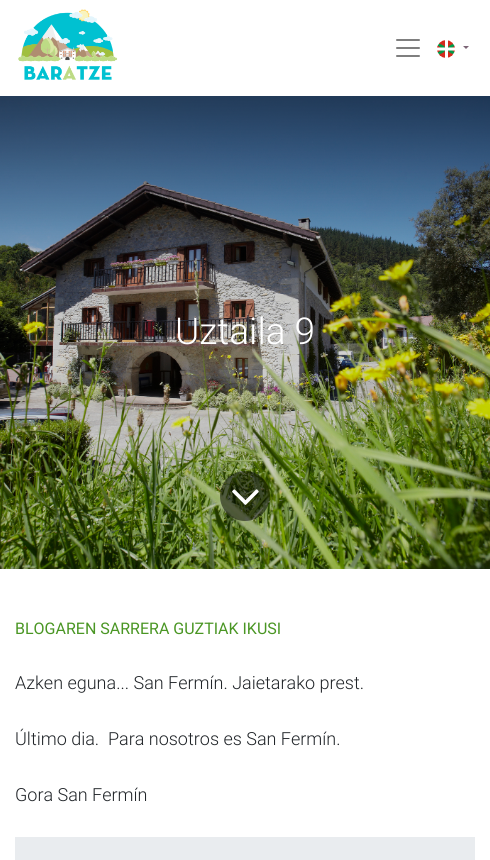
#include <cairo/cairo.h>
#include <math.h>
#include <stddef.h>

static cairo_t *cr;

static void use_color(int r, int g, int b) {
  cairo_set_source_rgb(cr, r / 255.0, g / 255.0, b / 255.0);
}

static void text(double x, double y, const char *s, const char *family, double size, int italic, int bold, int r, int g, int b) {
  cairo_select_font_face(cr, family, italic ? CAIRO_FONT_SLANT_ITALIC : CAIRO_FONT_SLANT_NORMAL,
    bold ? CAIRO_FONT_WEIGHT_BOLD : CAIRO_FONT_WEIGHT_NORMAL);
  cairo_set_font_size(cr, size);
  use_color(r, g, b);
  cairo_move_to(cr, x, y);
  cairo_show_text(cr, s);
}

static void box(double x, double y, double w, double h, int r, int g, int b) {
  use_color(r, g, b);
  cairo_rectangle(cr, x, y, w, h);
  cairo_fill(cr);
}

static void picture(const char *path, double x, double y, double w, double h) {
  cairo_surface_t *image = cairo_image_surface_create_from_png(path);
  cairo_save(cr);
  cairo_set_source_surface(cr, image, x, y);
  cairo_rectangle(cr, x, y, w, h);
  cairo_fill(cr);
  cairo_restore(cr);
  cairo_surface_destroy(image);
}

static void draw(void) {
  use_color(255, 255, 255);
  cairo_paint(cr);
  picture("img_01.png", 18, 9, 100, 71);
  picture("img_02.png", 396, 39, 24, 18);
  picture("img_03.png", 437, 40, 18, 18);
  use_color(124, 101, 118);
  cairo_new_path(cr);
  cairo_move_to(cr, 463, 46);
  cairo_line_to(cr, 469, 46);
  cairo_line_to(cr, 466, 49);
  cairo_close_path(cr);
  cairo_fill(cr);
  picture("img_04.png", 0, 96, 490, 473);
  cairo_set_source_rgba(cr, 0, 0, 0, 0.5);
  cairo_arc(cr, 245, 496, 25, 0, 2 * M_PI);
  cairo_fill(cr);
  picture("img_05.png", 232, 489, 27, 16);
  box(15, 837, 460, 23, 233, 236, 239);
  text(175, 344, "Uztaila 9", "Roboto Light", 37, 0, 0, 255, 255, 255);
  text(15, 634, "BLOGAREN SARRERA GUZTIAK IKUSI", "Roboto", 16, 0, 0, 74, 150, 36);
  text(15, 689, "Azken eguna... San Fermín. Jaietarako prest.", "Roboto Light", 18, 0, 0, 33, 37, 41);
  text(15, 745, "Último dia.  Para nosotros es San Fermín.", "Roboto Light", 18, 0, 0, 33, 37, 41);
  text(15, 801, "Gora San Fermín", "Roboto Light", 18, 0, 0, 33, 37, 41);
}

int main(void) {
  cairo_surface_t *surface = cairo_image_surface_create(CAIRO_FORMAT_RGB24, 490, 860);
  cr = cairo_create(surface);
  cairo_font_options_t *options = cairo_font_options_create();
  cairo_font_options_set_hint_metrics(options, CAIRO_HINT_METRICS_OFF);
  cairo_font_options_set_hint_style(options, CAIRO_HINT_STYLE_NONE);
  cairo_set_font_options(cr, options);
  cairo_set_miter_limit(cr, 4);
  draw();
  cairo_surface_write_to_png(surface, "out.png");
  cairo_font_options_destroy(options);
  cairo_destroy(cr);
  cairo_surface_destroy(surface);
  return 0;
}
